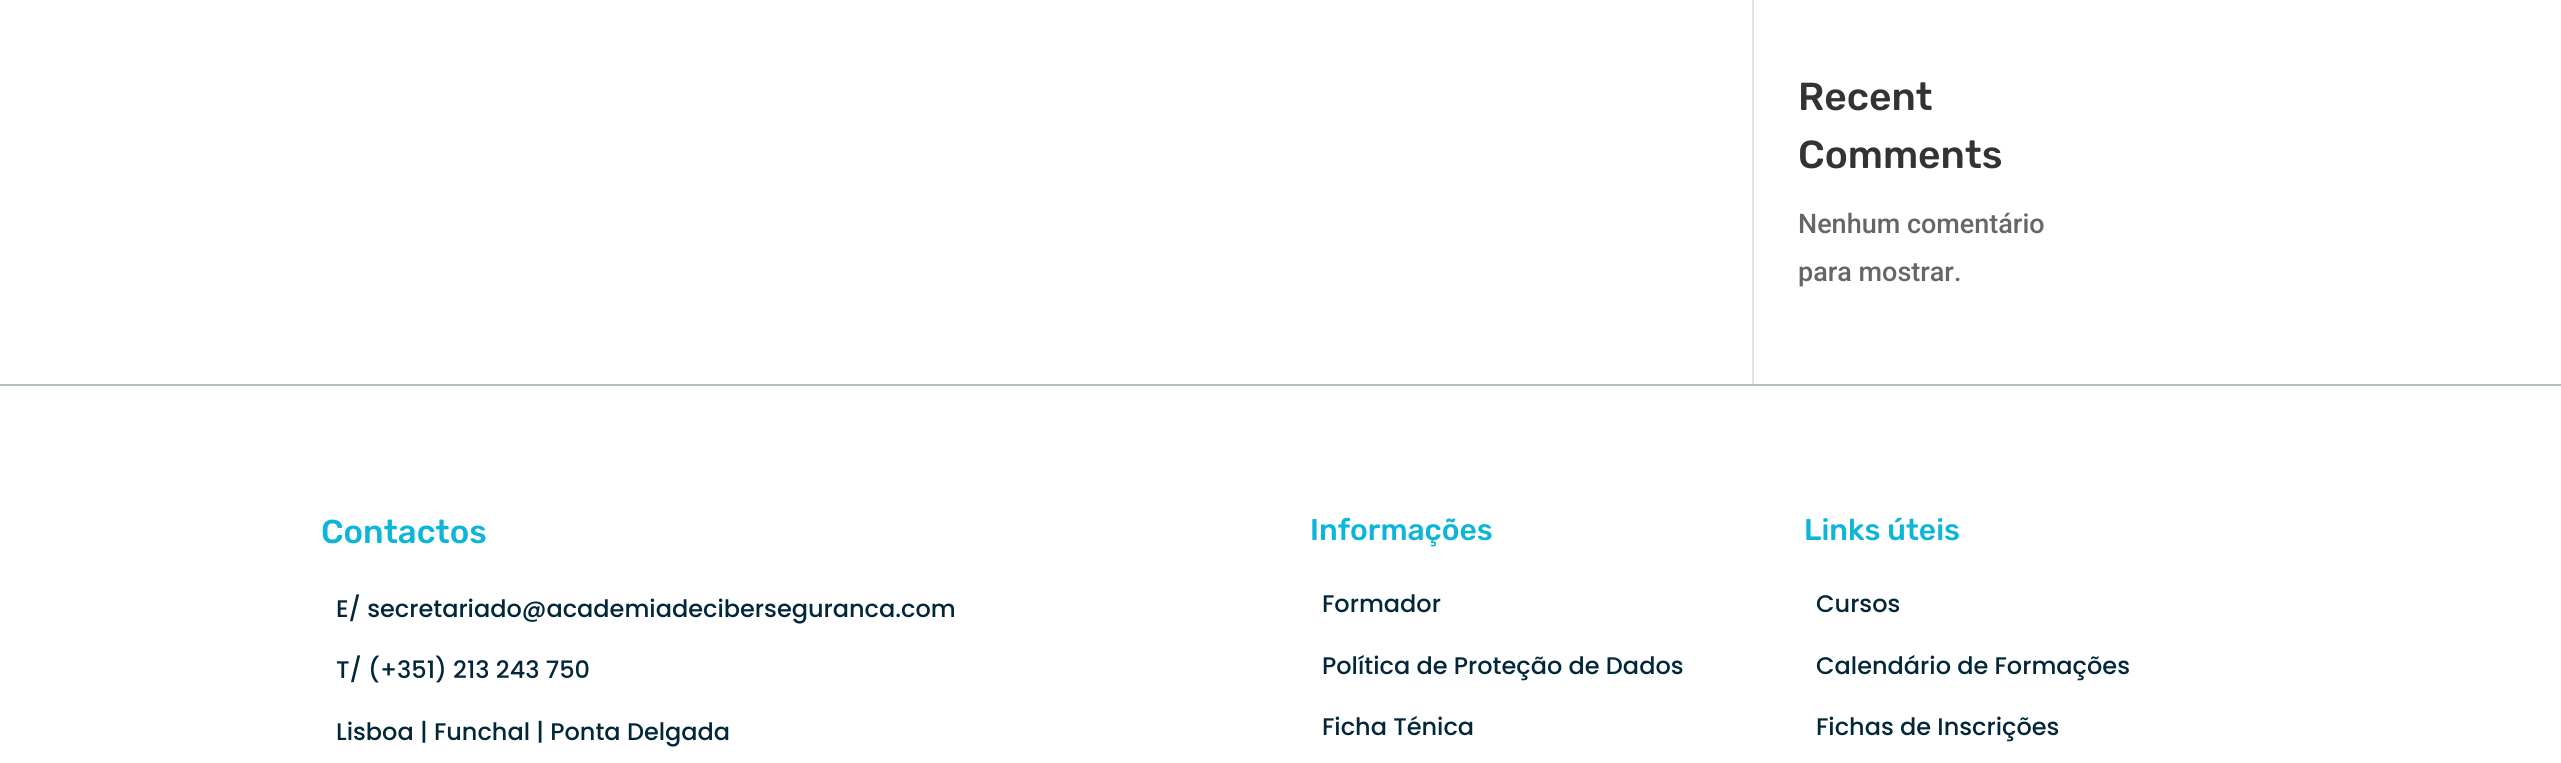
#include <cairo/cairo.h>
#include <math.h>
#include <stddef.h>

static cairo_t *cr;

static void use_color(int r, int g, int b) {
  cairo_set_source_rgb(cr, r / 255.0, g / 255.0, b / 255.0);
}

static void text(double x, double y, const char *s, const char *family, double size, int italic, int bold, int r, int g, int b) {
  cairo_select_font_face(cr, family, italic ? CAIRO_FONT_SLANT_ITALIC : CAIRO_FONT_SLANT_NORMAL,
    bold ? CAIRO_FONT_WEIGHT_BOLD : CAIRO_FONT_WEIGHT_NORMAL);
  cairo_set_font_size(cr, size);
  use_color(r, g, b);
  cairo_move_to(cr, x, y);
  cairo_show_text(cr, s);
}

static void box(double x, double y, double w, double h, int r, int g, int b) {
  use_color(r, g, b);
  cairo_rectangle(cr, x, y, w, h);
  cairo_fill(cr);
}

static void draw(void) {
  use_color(255, 255, 255);
  cairo_paint(cr);
  box(1752, 0, 2, 384, 226, 226, 226);
  box(0, 384, 2561, 2, 179, 190, 196);
  text(1798, 110, "Recent", "Rubik Light", 39, 0, 0, 51, 51, 51);
  text(1798, 168, "Comments", "Rubik Light", 39, 0, 0, 51, 51, 51);
  text(1798, 233, "Nenhum comentário", "Roboto Medium", 27, 0, 0, 102, 102, 102);
  text(1798, 281, "para mostrar.", "Roboto Medium", 27, 0, 0, 102, 102, 102);
  text(321, 543, "Contactos", "Rubik Light", 33, 0, 0, 13, 181, 217);
  text(336, 617, "E/ secretariado@academiadeciberseguranca.com", "Poppins Medium", 24, 0, 0, 2, 39, 57);
  text(336, 678, "T/ (+351) 213 243 750", "Poppins Medium", 24, 0, 0, 2, 39, 57);
  text(336, 740, "Lisboa | Funchal | Ponta Delgada", "Poppins Medium", 24, 0, 0, 2, 39, 57);
  text(1310, 540, "Informações", "Rubik Light", 30, 0, 0, 13, 181, 217);
  text(1322, 612, "Formador", "Poppins Medium", 24, 0, 0, 2, 39, 57);
  text(1322, 674, "Política de Proteção de Dados", "Poppins Medium", 24, 0, 0, 2, 39, 57);
  text(1322, 735, "Ficha Ténica", "Poppins Medium", 24, 0, 0, 2, 39, 57);
  text(1804, 540, "Links úteis", "Rubik Light", 30, 0, 0, 13, 181, 217);
  text(1816, 612, "Cursos", "Poppins Medium", 24, 0, 0, 2, 39, 57);
  text(1816, 674, "Calendário de Formações", "Poppins Medium", 24, 0, 0, 2, 39, 57);
  text(1816, 735, "Fichas de Inscrições", "Poppins Medium", 24, 0, 0, 2, 39, 57);
}

int main(void) {
  cairo_surface_t *surface = cairo_image_surface_create(CAIRO_FORMAT_RGB24, 2561, 763);
  cr = cairo_create(surface);
  cairo_font_options_t *options = cairo_font_options_create();
  cairo_font_options_set_hint_metrics(options, CAIRO_HINT_METRICS_OFF);
  cairo_font_options_set_hint_style(options, CAIRO_HINT_STYLE_NONE);
  cairo_set_font_options(cr, options);
  cairo_set_miter_limit(cr, 4);
  draw();
  cairo_surface_write_to_png(surface, "out.png");
  cairo_font_options_destroy(options);
  cairo_destroy(cr);
  cairo_surface_destroy(surface);
  return 0;
}
